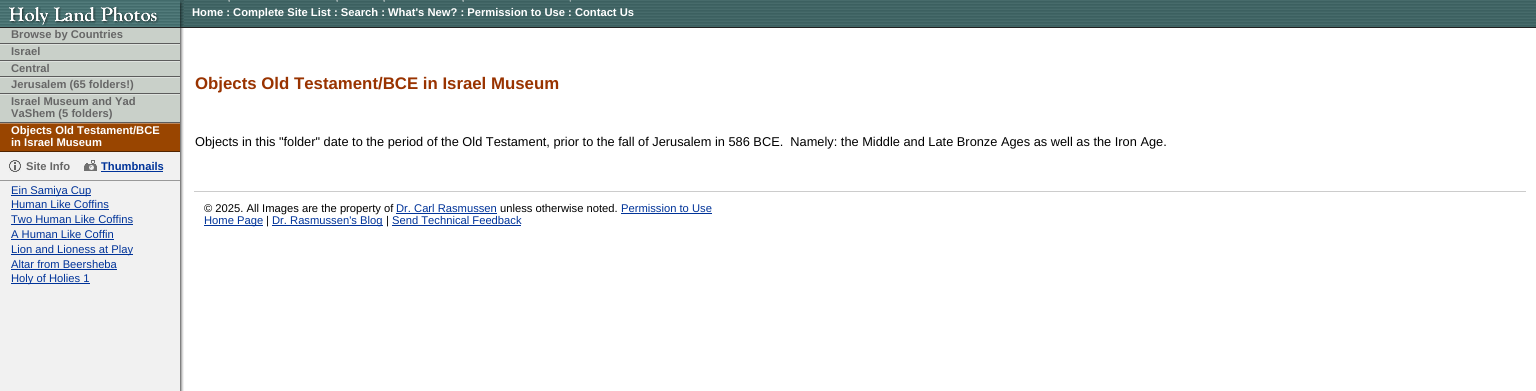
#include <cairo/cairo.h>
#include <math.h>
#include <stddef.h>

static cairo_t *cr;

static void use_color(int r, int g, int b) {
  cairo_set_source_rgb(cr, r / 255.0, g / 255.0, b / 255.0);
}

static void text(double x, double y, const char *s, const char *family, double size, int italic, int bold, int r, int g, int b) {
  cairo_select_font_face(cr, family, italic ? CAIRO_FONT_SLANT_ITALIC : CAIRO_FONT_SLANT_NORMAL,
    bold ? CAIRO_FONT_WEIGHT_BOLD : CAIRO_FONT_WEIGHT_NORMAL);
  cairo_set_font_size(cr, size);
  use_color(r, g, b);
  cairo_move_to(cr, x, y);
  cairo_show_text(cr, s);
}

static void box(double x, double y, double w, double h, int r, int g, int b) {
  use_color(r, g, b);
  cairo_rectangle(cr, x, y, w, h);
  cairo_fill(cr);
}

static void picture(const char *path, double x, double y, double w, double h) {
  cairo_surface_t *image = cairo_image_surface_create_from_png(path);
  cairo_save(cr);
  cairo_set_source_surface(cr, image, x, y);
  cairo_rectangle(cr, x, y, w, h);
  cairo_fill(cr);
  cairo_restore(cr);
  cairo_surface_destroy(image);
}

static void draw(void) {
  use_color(255, 255, 255);
  cairo_paint(cr);
  picture("img_01.png", 0, 28, 184, 363);
  picture("img_02.png", 184, 0, 1352, 27);
  box(0, 27, 1536, 1, 34, 34, 34);
  picture("img_03.png", 0, 0, 184, 27);
  picture("img_04.png", 228, 0, 2, 2);
  picture("img_04.png", 336, 0, 2, 2);
  picture("img_04.png", 383, 0, 2, 2);
  picture("img_04.png", 462, 0, 2, 2);
  picture("img_05.png", 569, 0, 2, 2);
  box(0, 28, 180, 15, 201, 208, 201);
  box(0, 43, 180, 1, 92, 92, 92);
  box(0, 45, 180, 15, 201, 208, 201);
  box(0, 44, 180, 1, 222, 226, 222);
  box(0, 60, 180, 1, 92, 92, 92);
  box(0, 62, 180, 14, 201, 208, 201);
  box(0, 61, 180, 1, 222, 226, 222);
  box(0, 76, 180, 1, 92, 92, 92);
  box(0, 78, 180, 15, 201, 208, 201);
  box(0, 77, 180, 1, 222, 226, 222);
  box(0, 93, 180, 1, 92, 92, 92);
  box(0, 95, 180, 27, 201, 208, 201);
  box(0, 94, 180, 1, 222, 226, 222);
  box(0, 122, 180, 1, 92, 92, 92);
  box(0, 124, 180, 27, 153, 69, 0);
  box(0, 123, 180, 1, 190, 136, 92);
  box(0, 151, 180, 1, 80, 36, 0);
  box(0, 180, 180, 1, 153, 153, 153);
  picture("img_06.png", 9, 160, 12, 12);
  picture("img_07.png", 84, 160, 13, 11);
  box(101, 171, 62, 1, 0, 51, 153);
  box(11, 195, 80, 1, 0, 51, 153);
  box(11, 209, 98, 1, 0, 51, 153);
  box(11, 224, 122, 1, 0, 51, 153);
  box(11, 239, 103, 1, 0, 51, 153);
  box(11, 254, 122, 1, 0, 51, 153);
  box(11, 269, 106, 1, 0, 51, 153);
  box(11, 283, 79, 1, 0, 51, 153);
  box(194, 191, 1332, 1, 204, 204, 204);
  box(396, 213, 101, 1, 0, 51, 153);
  box(621, 213, 91, 1, 0, 51, 153);
  box(204, 225, 59, 1, 0, 51, 153);
  box(272, 225, 111, 1, 0, 51, 153);
  box(392, 225, 129, 1, 0, 51, 153);
  text(192, 16, "Home : Complete Site List : Search : What's New? : Permission to Use : Contact Us", "Liberation Sans", 11.2, 0, 1, 255, 255, 255);
  text(11, 38, "Browse by Countries", "Liberation Sans", 11.2, 0, 1, 102, 102, 102);
  text(11, 55, "Israel", "Liberation Sans", 11.2, 0, 1, 102, 102, 102);
  text(11, 72, "Central", "Liberation Sans", 11.2, 0, 1, 102, 102, 102);
  text(11, 88, "Jerusalem (65 folders!)", "Liberation Sans", 11.2, 0, 1, 102, 102, 102);
  text(11, 105, "Israel Museum and Yad", "Liberation Sans", 11.2, 0, 1, 102, 102, 102);
  text(11, 117, "VaShem (5 folders)", "Liberation Sans", 11.2, 0, 1, 102, 102, 102);
  text(11, 134, "Objects Old Testament/BCE", "Liberation Sans", 11.2, 0, 1, 255, 255, 255);
  text(11, 146, "in Israel Museum", "Liberation Sans", 11.2, 0, 1, 255, 255, 255);
  text(26, 170, "Site Info", "Liberation Sans", 11.2, 0, 1, 102, 102, 102);
  text(101, 170, "Thumbnails", "Liberation Sans", 11.2, 0, 1, 0, 51, 153);
  text(11, 194, "Ein Samiya Cup", "Liberation Sans", 11.2, 0, 0, 0, 51, 153);
  text(11, 208, "Human Like Coffins", "Liberation Sans", 11.2, 0, 0, 0, 51, 153);
  text(11, 223, "Two Human Like Coffins", "Liberation Sans", 11.2, 0, 0, 0, 51, 153);
  text(11, 238, "A Human Like Coffin", "Liberation Sans", 11.2, 0, 0, 0, 51, 153);
  text(11, 253, "Lion and Lioness at Play", "Liberation Sans", 11.2, 0, 0, 0, 51, 153);
  text(11, 268, "Altar from Beersheba", "Liberation Sans", 11.2, 0, 0, 0, 51, 153);
  text(11, 282, "Holy of Holies 1", "Liberation Sans", 11.2, 0, 0, 0, 51, 153);
  text(195, 89, "Objects Old Testament/BCE in Israel Museum", "Liberation Sans", 16.8, 0, 1, 153, 51, 0);
  text(195, 146, "Objects in this \"folder\" date to the period of the Old Testament, prior to the fall of Jerusalem in 586 BCE.  Namely: the Middle and Late Bronze Ages as well as the Iron Age.", "Liberation Sans", 12.8, 0, 0, 0, 0, 0);
  text(204, 212, "© 2025. All Images are the property of", "Liberation Sans", 11.2, 0, 0, 0, 0, 0);
  text(396, 212, "Dr. Carl Rasmussen", "Liberation Sans", 11.2, 0, 0, 0, 51, 153);
  text(500, 212, "unless otherwise noted.", "Liberation Sans", 11.2, 0, 0, 0, 0, 0);
  text(621, 212, "Permission to Use", "Liberation Sans", 11.2, 0, 0, 0, 51, 153);
  text(204, 224, "Home Page", "Liberation Sans", 11.2, 0, 0, 0, 51, 153);
  text(266, 224, "|", "Liberation Sans", 11.2, 0, 0, 0, 0, 0);
  text(272, 224, "Dr. Rasmussen's Blog", "Liberation Sans", 11.2, 0, 0, 0, 51, 153);
  text(386, 224, "|", "Liberation Sans", 11.2, 0, 0, 0, 0, 0);
  text(392, 224, "Send Technical Feedback", "Liberation Sans", 11.2, 0, 0, 0, 51, 153);
}

int main(void) {
  cairo_surface_t *surface = cairo_image_surface_create(CAIRO_FORMAT_RGB24, 1536, 391);
  cr = cairo_create(surface);
  cairo_font_options_t *options = cairo_font_options_create();
  cairo_font_options_set_hint_metrics(options, CAIRO_HINT_METRICS_OFF);
  cairo_font_options_set_hint_style(options, CAIRO_HINT_STYLE_NONE);
  cairo_set_font_options(cr, options);
  cairo_set_miter_limit(cr, 4);
  draw();
  cairo_surface_write_to_png(surface, "out.png");
  cairo_font_options_destroy(options);
  cairo_destroy(cr);
  cairo_surface_destroy(surface);
  return 0;
}
